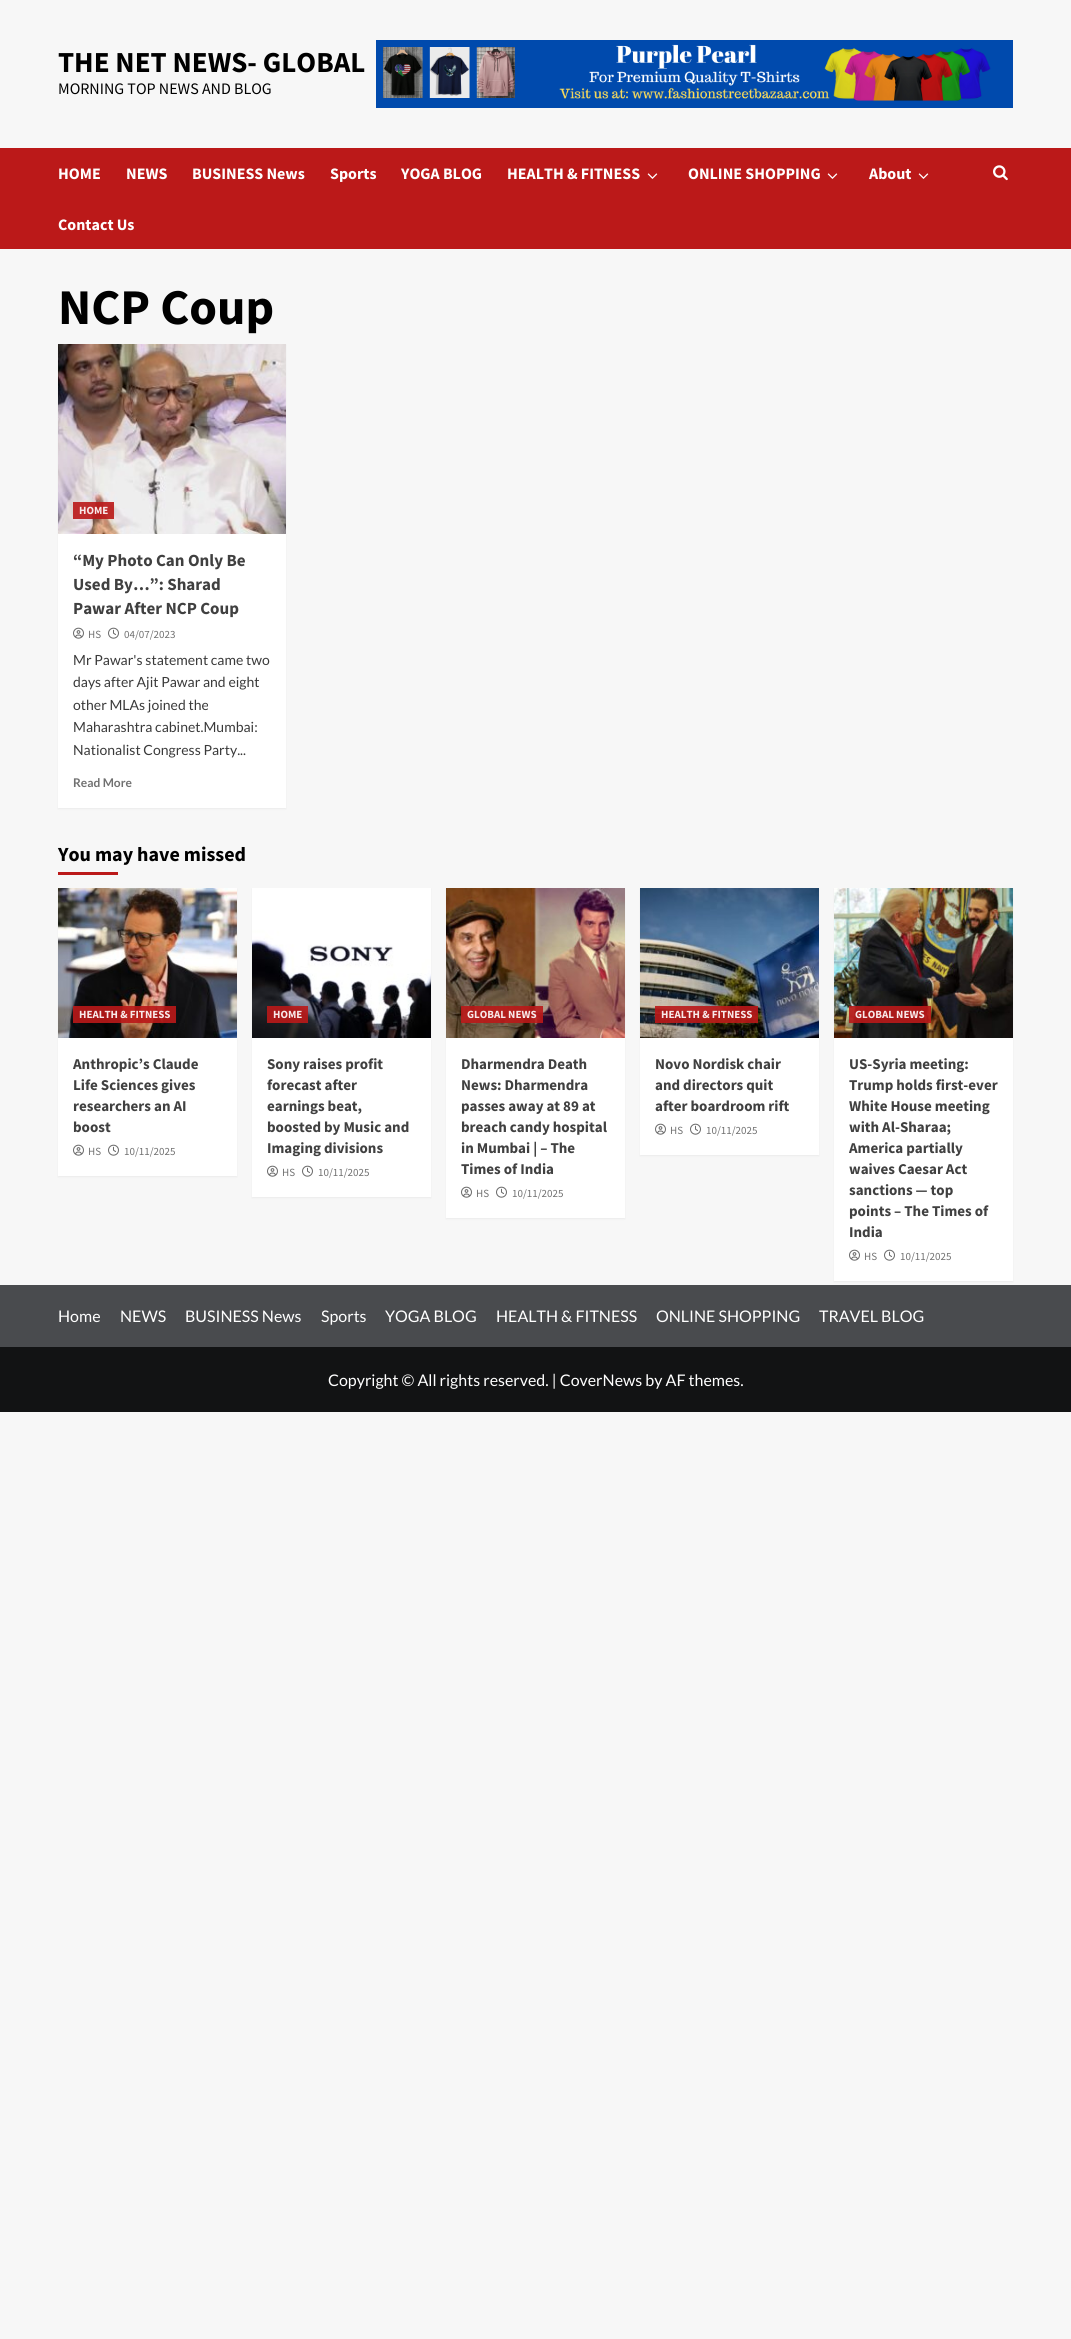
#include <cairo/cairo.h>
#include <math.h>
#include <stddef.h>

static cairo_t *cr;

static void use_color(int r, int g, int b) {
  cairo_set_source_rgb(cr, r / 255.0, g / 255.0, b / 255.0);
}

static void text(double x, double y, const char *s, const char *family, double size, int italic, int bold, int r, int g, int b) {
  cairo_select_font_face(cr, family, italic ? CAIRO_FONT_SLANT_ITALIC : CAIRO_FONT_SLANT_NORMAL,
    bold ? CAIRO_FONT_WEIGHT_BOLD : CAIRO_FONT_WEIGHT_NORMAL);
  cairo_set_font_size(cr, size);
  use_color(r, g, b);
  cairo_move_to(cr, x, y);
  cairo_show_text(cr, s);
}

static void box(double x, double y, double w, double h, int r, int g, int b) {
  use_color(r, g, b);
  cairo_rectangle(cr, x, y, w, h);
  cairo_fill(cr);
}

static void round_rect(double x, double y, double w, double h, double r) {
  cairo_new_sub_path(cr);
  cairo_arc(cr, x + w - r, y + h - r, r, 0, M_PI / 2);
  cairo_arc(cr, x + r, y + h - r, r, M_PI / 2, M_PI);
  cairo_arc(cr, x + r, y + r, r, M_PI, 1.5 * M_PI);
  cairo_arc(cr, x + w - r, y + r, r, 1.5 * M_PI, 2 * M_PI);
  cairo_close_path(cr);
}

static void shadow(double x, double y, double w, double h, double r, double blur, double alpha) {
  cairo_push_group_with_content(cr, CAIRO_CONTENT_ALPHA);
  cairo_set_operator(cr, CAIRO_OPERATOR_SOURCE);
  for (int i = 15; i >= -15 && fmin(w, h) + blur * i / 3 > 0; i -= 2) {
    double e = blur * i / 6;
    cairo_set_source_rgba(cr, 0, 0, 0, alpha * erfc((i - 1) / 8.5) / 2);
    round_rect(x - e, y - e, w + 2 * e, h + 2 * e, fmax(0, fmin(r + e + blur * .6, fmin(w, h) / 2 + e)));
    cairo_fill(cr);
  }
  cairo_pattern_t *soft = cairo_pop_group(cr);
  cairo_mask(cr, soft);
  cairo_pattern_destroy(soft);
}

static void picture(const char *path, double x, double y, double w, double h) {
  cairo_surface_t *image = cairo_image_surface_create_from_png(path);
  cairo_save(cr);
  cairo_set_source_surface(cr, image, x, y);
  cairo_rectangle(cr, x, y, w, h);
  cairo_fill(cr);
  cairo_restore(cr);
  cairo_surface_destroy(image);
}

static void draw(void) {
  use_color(247, 247, 247);
  cairo_paint(cr);
  picture("img_01.png", 376, 40, 637, 68);
  box(0, 148, 1071, 101, 187, 25, 25);
  picture("img_02.png", 647, 173, 11, 6);
  picture("img_02.png", 827, 173, 11, 6);
  picture("img_02.png", 918, 173, 11, 6);
  picture("img_03.png", 993, 165, 15, 16);
  use_color(0, 0, 0);
  shadow(58, 345, 228, 464, 0, 1, 0.05);
  box(58, 534, 228, 274, 255, 255, 255);
  picture("img_04.png", 58, 344, 228, 190);
  cairo_set_source_rgba(cr, 0.733, 0.098, 0.098, 0.9);
  cairo_rectangle(cr, 73, 502, 41, 17);
  cairo_fill(cr);
  picture("img_05.png", 73, 627, 11, 12);
  picture("img_06.png", 108, 627, 11, 12);
  box(58, 872, 60, 3, 187, 25, 25);
  use_color(0, 0, 0);
  shadow(58, 889, 179, 288, 0, 1, 0.05);
  box(58, 1038, 179, 138, 255, 255, 255);
  picture("img_07.png", 58, 888, 179, 150);
  cairo_set_source_rgba(cr, 0.733, 0.098, 0.098, 0.9);
  cairo_rectangle(cr, 73, 1006, 103, 17);
  cairo_fill(cr);
  picture("img_05.png", 73, 1144, 11, 12);
  picture("img_06.png", 108, 1144, 11, 12);
  use_color(0, 0, 0);
  shadow(252, 889, 179, 309, 0, 1, 0.05);
  box(252, 1038, 179, 159, 255, 255, 255);
  picture("img_08.png", 252, 888, 179, 150);
  cairo_set_source_rgba(cr, 0.733, 0.098, 0.098, 0.9);
  cairo_rectangle(cr, 267, 1006, 41, 17);
  cairo_fill(cr);
  picture("img_05.png", 267, 1165, 11, 12);
  picture("img_06.png", 302, 1165, 11, 12);
  use_color(0, 0, 0);
  shadow(446, 889, 179, 330, 0, 1, 0.05);
  box(446, 1038, 179, 180, 255, 255, 255);
  picture("img_09.png", 446, 888, 179, 150);
  cairo_set_source_rgba(cr, 0.733, 0.098, 0.098, 0.9);
  cairo_rectangle(cr, 461, 1006, 82, 17);
  cairo_fill(cr);
  picture("img_05.png", 461, 1186, 11, 12);
  picture("img_06.png", 496, 1186, 11, 12);
  use_color(0, 0, 0);
  shadow(640, 889, 179, 267, 0, 1, 0.05);
  box(640, 1038, 179, 117, 255, 255, 255);
  picture("img_10.png", 640, 888, 179, 150);
  cairo_set_source_rgba(cr, 0.733, 0.098, 0.098, 0.9);
  cairo_rectangle(cr, 655, 1006, 103, 17);
  cairo_fill(cr);
  picture("img_05.png", 655, 1123, 11, 12);
  picture("img_06.png", 690, 1123, 11, 12);
  box(0, 1285, 1071, 62, 73, 75, 78);
  use_color(0, 0, 0);
  shadow(834, 889, 179, 393, 0, 1, 0.05);
  box(834, 1038, 179, 243, 255, 255, 255);
  picture("img_11.png", 834, 888, 179, 150);
  cairo_set_source_rgba(cr, 0.733, 0.098, 0.098, 0.9);
  cairo_rectangle(cr, 849, 1006, 82, 17);
  cairo_fill(cr);
  picture("img_05.png", 849, 1249, 11, 12);
  picture("img_06.png", 884, 1249, 11, 12);
  box(0, 1347, 1071, 65, 18, 19, 20);
  text(58, 72, "THE NET NEWS- GLOBAL", "Source Sans Pro", 29, 0, 1, 0, 0, 0);
  text(58, 94, "MORNING TOP NEWS AND BLOG", "Source Sans Pro", 16, 0, 0, 0, 0, 0);
  text(58, 179, "HOME", "Source Sans Pro", 16, 0, 1, 255, 255, 255);
  text(126, 179, "NEWS", "Source Sans Pro", 16, 0, 1, 255, 255, 255);
  text(192, 179, "BUSINESS News", "Source Sans Pro", 16, 0, 1, 255, 255, 255);
  text(330, 179, "Sports", "Source Sans Pro", 16, 0, 1, 255, 255, 255);
  text(401, 179, "YOGA BLOG", "Source Sans Pro", 16, 0, 1, 255, 255, 255);
  text(507, 179, "HEALTH & FITNESS", "Source Sans Pro", 16, 0, 1, 255, 255, 255);
  text(688, 179, "ONLINE SHOPPING", "Source Sans Pro", 16, 0, 1, 255, 255, 255);
  text(869, 179, "About", "Source Sans Pro", 16, 0, 1, 255, 255, 255);
  text(58, 230, "Contact Us", "Source Sans Pro", 16, 0, 1, 255, 255, 255);
  text(58, 324, "NCP Coup", "Source Sans Pro", 50, 0, 1, 0, 0, 0);
  text(79, 514, "HOME", "Source Sans Pro", 11, 0, 1, 248, 233, 233);
  text(73, 566, "“My Photo Can Only Be", "Source Sans Pro", 17, 0, 1, 64, 64, 64);
  text(73, 590, "Used By…”: Sharad", "Source Sans Pro", 17, 0, 1, 64, 64, 64);
  text(73, 614, "Pawar After NCP Coup", "Source Sans Pro", 17, 0, 1, 64, 64, 64);
  text(88, 638, "HS", "Source Sans Pro", 11, 0, 0, 112, 112, 112);
  text(124, 638, "04/07/2023", "Source Sans Pro", 11, 0, 0, 112, 112, 112);
  text(73, 665, "Mr Pawar's statement came two", "Lato", 14, 0, 0, 58, 58, 58);
  text(73, 687, "days after Ajit Pawar and eight", "Lato", 14, 0, 0, 58, 58, 58);
  text(73, 710, "other MLAs joined the", "Lato", 14, 0, 0, 58, 58, 58);
  text(73, 732, "Maharashtra cabinet.Mumbai:", "Lato", 14, 0, 0, 58, 58, 58);
  text(73, 755, "Nationalist Congress Party...", "Lato", 14, 0, 0, 58, 58, 58);
  text(73, 787, "Read More", "Lato", 12, 0, 1, 112, 112, 112);
  text(58, 861, "You may have missed", "Source Sans Pro", 20, 0, 1, 0, 0, 0);
  text(79, 1018, "HEALTH & FITNESS", "Source Sans Pro", 11, 0, 1, 248, 233, 233);
  text(73, 1069, "Anthropic’s Claude", "Source Sans Pro", 15, 0, 1, 64, 64, 64);
  text(73, 1090, "Life Sciences gives", "Source Sans Pro", 15, 0, 1, 64, 64, 64);
  text(73, 1111, "researchers an AI", "Source Sans Pro", 15, 0, 1, 64, 64, 64);
  text(73, 1132, "boost", "Source Sans Pro", 15, 0, 1, 64, 64, 64);
  text(88, 1155, "HS", "Source Sans Pro", 11, 0, 0, 112, 112, 112);
  text(124, 1155, "10/11/2025", "Source Sans Pro", 11, 0, 0, 112, 112, 112);
  text(273, 1018, "HOME", "Source Sans Pro", 11, 0, 1, 248, 233, 233);
  text(267, 1069, "Sony raises profit", "Source Sans Pro", 15, 0, 1, 64, 64, 64);
  text(267, 1090, "forecast after", "Source Sans Pro", 15, 0, 1, 64, 64, 64);
  text(267, 1111, "earnings beat,", "Source Sans Pro", 15, 0, 1, 64, 64, 64);
  text(267, 1132, "boosted by Music and", "Source Sans Pro", 15, 0, 1, 64, 64, 64);
  text(267, 1153, "Imaging divisions", "Source Sans Pro", 15, 0, 1, 64, 64, 64);
  text(282, 1176, "HS", "Source Sans Pro", 11, 0, 0, 112, 112, 112);
  text(318, 1176, "10/11/2025", "Source Sans Pro", 11, 0, 0, 112, 112, 112);
  text(467, 1018, "GLOBAL NEWS", "Source Sans Pro", 11, 0, 1, 248, 233, 233);
  text(461, 1069, "Dharmendra Death", "Source Sans Pro", 15, 0, 1, 64, 64, 64);
  text(461, 1090, "News: Dharmendra", "Source Sans Pro", 15, 0, 1, 64, 64, 64);
  text(461, 1111, "passes away at 89 at", "Source Sans Pro", 15, 0, 1, 64, 64, 64);
  text(461, 1132, "breach candy hospital", "Source Sans Pro", 15, 0, 1, 64, 64, 64);
  text(461, 1153, "in Mumbai | – The", "Source Sans Pro", 15, 0, 1, 64, 64, 64);
  text(461, 1174, "Times of India", "Source Sans Pro", 15, 0, 1, 64, 64, 64);
  text(476, 1197, "HS", "Source Sans Pro", 11, 0, 0, 112, 112, 112);
  text(512, 1197, "10/11/2025", "Source Sans Pro", 11, 0, 0, 112, 112, 112);
  text(661, 1018, "HEALTH & FITNESS", "Source Sans Pro", 11, 0, 1, 248, 233, 233);
  text(655, 1069, "Novo Nordisk chair", "Source Sans Pro", 15, 0, 1, 64, 64, 64);
  text(655, 1090, "and directors quit", "Source Sans Pro", 15, 0, 1, 64, 64, 64);
  text(655, 1111, "after boardroom rift", "Source Sans Pro", 15, 0, 1, 64, 64, 64);
  text(670, 1134, "HS", "Source Sans Pro", 11, 0, 0, 112, 112, 112);
  text(706, 1134, "10/11/2025", "Source Sans Pro", 11, 0, 0, 112, 112, 112);
  text(855, 1018, "GLOBAL NEWS", "Source Sans Pro", 11, 0, 1, 248, 233, 233);
  text(849, 1069, "US-Syria meeting:", "Source Sans Pro", 15, 0, 1, 64, 64, 64);
  text(849, 1090, "Trump holds first-ever", "Source Sans Pro", 15, 0, 1, 64, 64, 64);
  text(849, 1111, "White House meeting", "Source Sans Pro", 15, 0, 1, 64, 64, 64);
  text(849, 1132, "with Al-Sharaa;", "Source Sans Pro", 15, 0, 1, 64, 64, 64);
  text(849, 1153, "America partially", "Source Sans Pro", 15, 0, 1, 64, 64, 64);
  text(849, 1174, "waives Caesar Act", "Source Sans Pro", 15, 0, 1, 64, 64, 64);
  text(849, 1195, "sanctions — top", "Source Sans Pro", 15, 0, 1, 64, 64, 64);
  text(849, 1216, "points – The Times of", "Source Sans Pro", 15, 0, 1, 64, 64, 64);
  text(849, 1237, "India", "Source Sans Pro", 15, 0, 1, 64, 64, 64);
  text(864, 1260, "HS", "Source Sans Pro", 11, 0, 0, 112, 112, 112);
  text(900, 1260, "10/11/2025", "Source Sans Pro", 11, 0, 0, 112, 112, 112);
  text(58, 1322, "Home", "Lato", 16, 0, 0, 255, 255, 255);
  text(120, 1322, "NEWS", "Lato", 16, 0, 0, 255, 255, 255);
  text(185, 1322, "BUSINESS News", "Lato", 16, 0, 0, 255, 255, 255);
  text(321, 1322, "Sports", "Lato", 16, 0, 0, 255, 255, 255);
  text(385, 1322, "YOGA BLOG", "Lato", 16, 0, 0, 255, 255, 255);
  text(496, 1322, "HEALTH & FITNESS", "Lato", 16, 0, 0, 255, 255, 255);
  text(656, 1322, "ONLINE SHOPPING", "Lato", 16, 0, 0, 255, 255, 255);
  text(819, 1322, "TRAVEL BLOG", "Lato", 16, 0, 0, 255, 255, 255);
  text(328, 1386, "Copyright © All rights reserved. | CoverNews by AF themes.", "Lato", 16, 0, 0, 255, 255, 255);
}

int main(void) {
  cairo_surface_t *surface = cairo_image_surface_create(CAIRO_FORMAT_RGB24, 1071, 2339);
  cr = cairo_create(surface);
  cairo_font_options_t *options = cairo_font_options_create();
  cairo_font_options_set_hint_metrics(options, CAIRO_HINT_METRICS_OFF);
  cairo_font_options_set_hint_style(options, CAIRO_HINT_STYLE_NONE);
  cairo_set_font_options(cr, options);
  cairo_set_miter_limit(cr, 4);
  draw();
  cairo_surface_write_to_png(surface, "out.png");
  cairo_font_options_destroy(options);
  cairo_destroy(cr);
  cairo_surface_destroy(surface);
  return 0;
}
